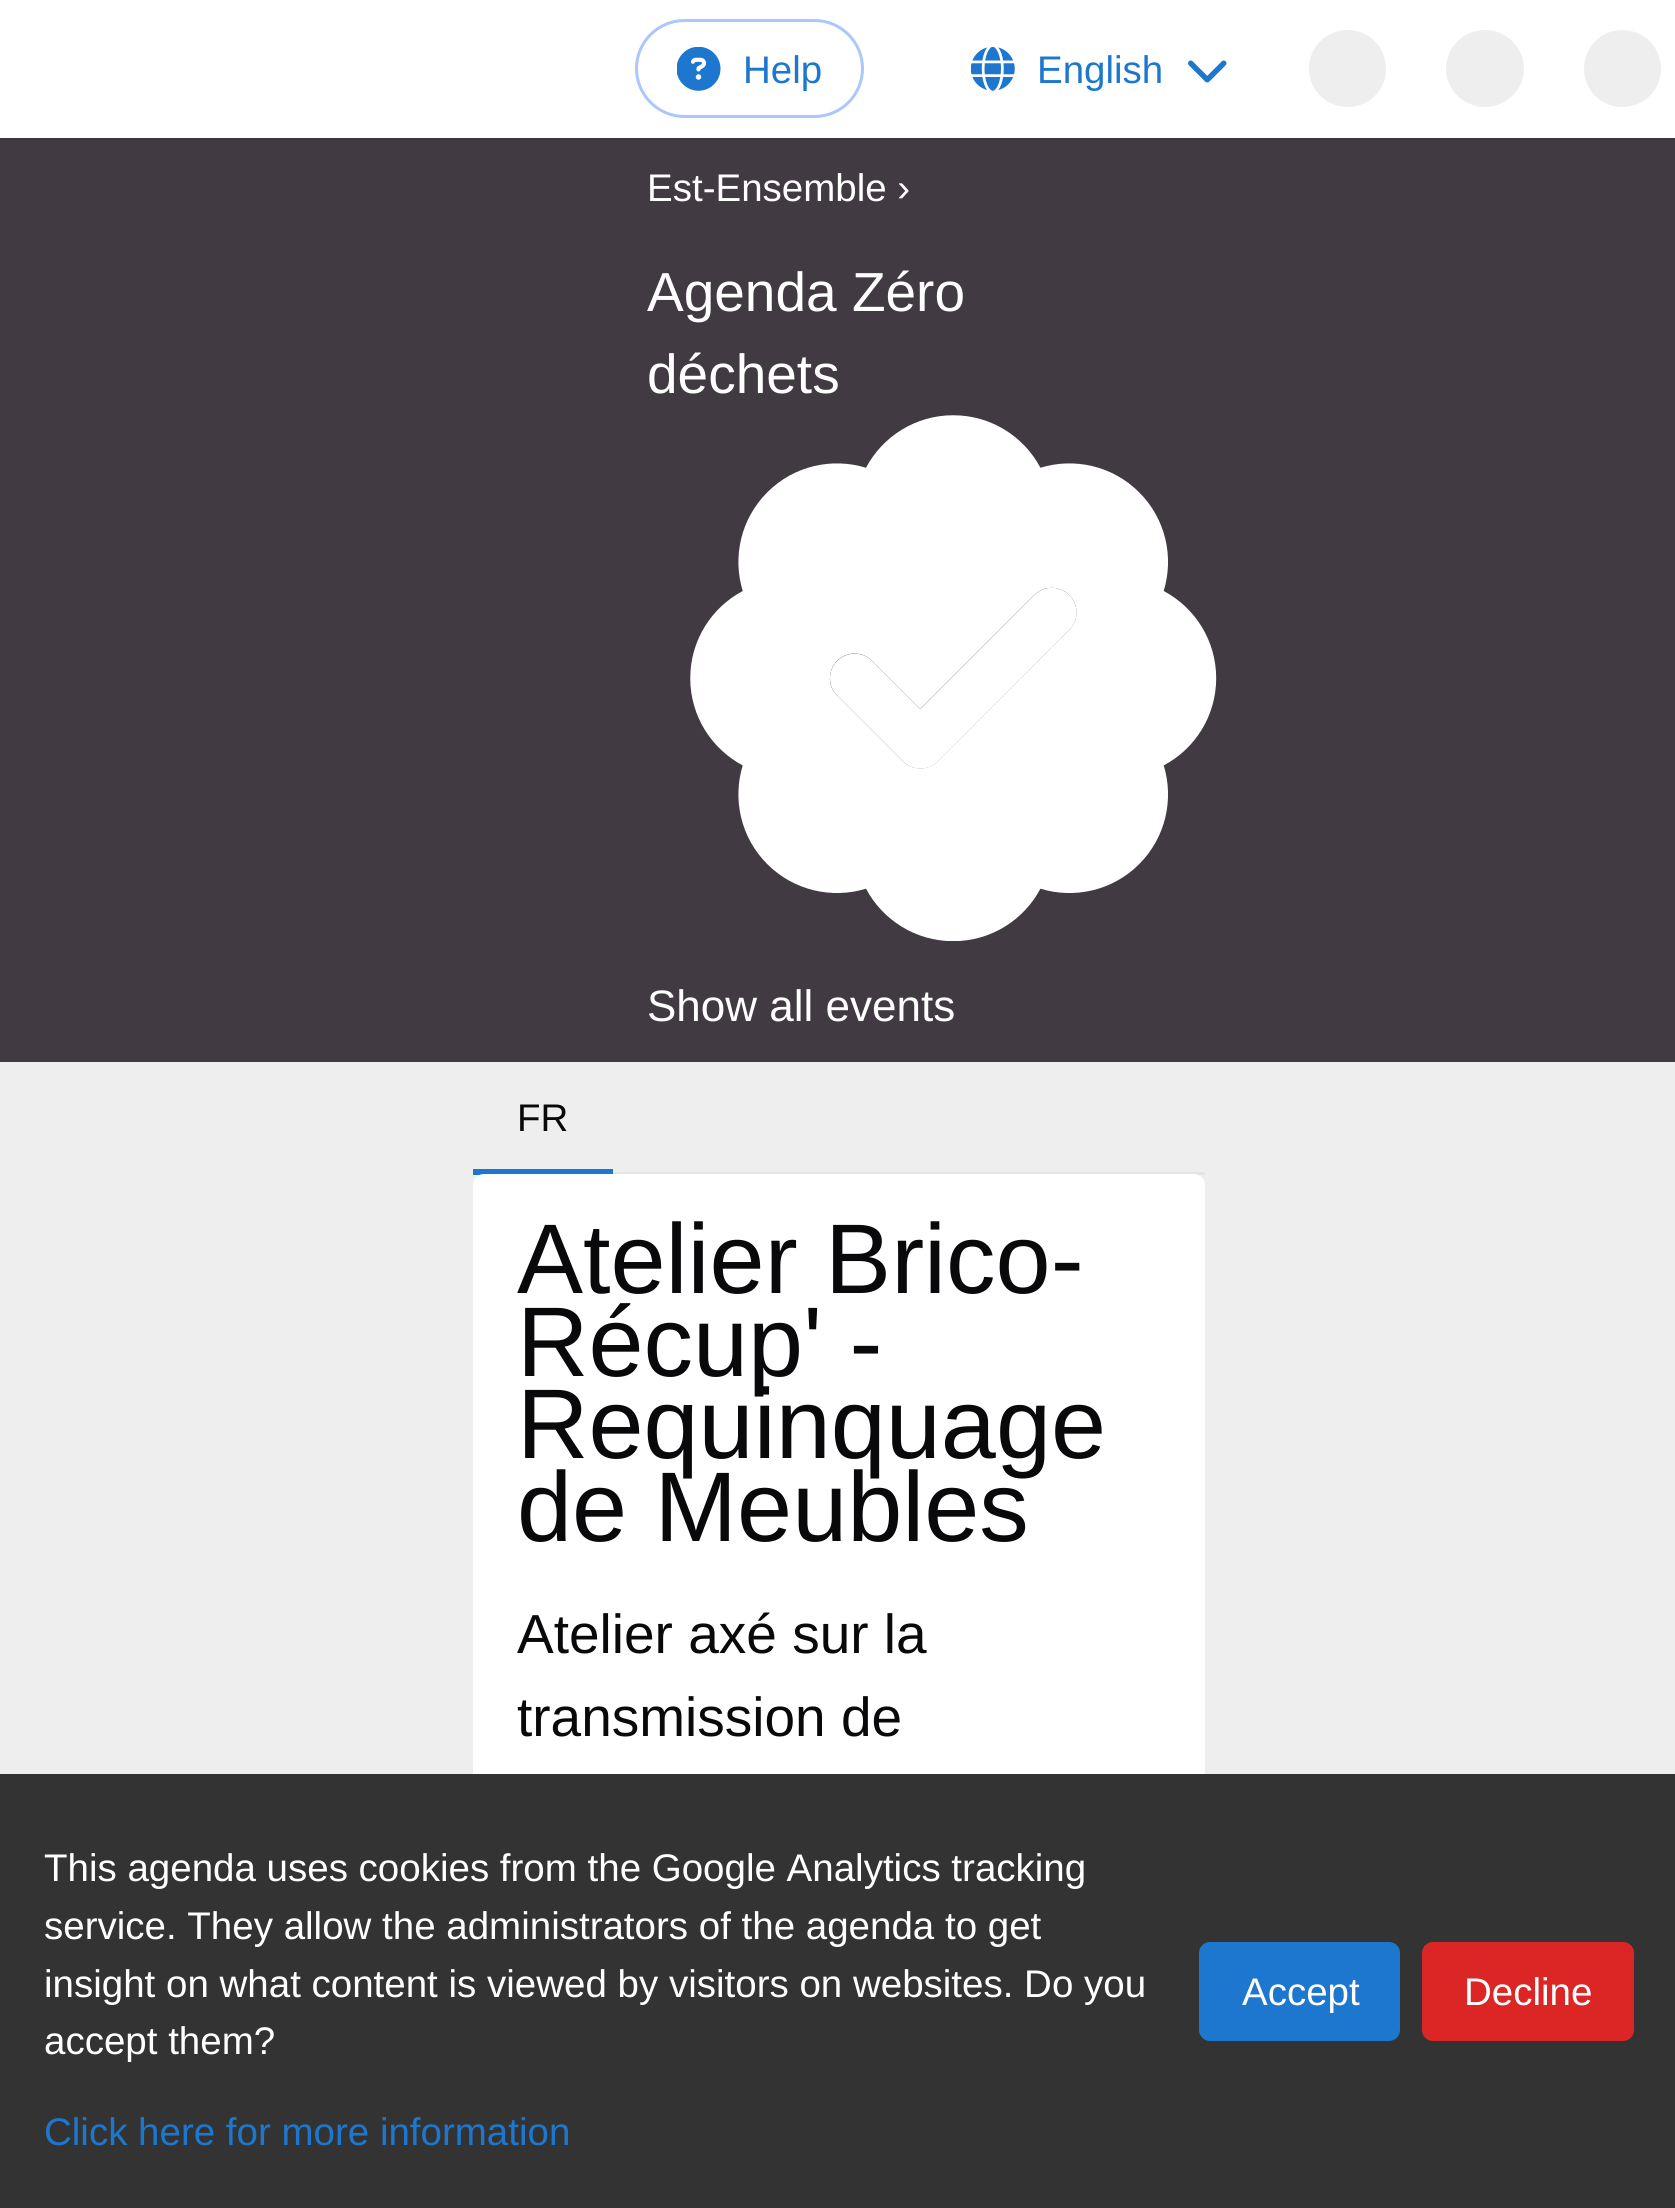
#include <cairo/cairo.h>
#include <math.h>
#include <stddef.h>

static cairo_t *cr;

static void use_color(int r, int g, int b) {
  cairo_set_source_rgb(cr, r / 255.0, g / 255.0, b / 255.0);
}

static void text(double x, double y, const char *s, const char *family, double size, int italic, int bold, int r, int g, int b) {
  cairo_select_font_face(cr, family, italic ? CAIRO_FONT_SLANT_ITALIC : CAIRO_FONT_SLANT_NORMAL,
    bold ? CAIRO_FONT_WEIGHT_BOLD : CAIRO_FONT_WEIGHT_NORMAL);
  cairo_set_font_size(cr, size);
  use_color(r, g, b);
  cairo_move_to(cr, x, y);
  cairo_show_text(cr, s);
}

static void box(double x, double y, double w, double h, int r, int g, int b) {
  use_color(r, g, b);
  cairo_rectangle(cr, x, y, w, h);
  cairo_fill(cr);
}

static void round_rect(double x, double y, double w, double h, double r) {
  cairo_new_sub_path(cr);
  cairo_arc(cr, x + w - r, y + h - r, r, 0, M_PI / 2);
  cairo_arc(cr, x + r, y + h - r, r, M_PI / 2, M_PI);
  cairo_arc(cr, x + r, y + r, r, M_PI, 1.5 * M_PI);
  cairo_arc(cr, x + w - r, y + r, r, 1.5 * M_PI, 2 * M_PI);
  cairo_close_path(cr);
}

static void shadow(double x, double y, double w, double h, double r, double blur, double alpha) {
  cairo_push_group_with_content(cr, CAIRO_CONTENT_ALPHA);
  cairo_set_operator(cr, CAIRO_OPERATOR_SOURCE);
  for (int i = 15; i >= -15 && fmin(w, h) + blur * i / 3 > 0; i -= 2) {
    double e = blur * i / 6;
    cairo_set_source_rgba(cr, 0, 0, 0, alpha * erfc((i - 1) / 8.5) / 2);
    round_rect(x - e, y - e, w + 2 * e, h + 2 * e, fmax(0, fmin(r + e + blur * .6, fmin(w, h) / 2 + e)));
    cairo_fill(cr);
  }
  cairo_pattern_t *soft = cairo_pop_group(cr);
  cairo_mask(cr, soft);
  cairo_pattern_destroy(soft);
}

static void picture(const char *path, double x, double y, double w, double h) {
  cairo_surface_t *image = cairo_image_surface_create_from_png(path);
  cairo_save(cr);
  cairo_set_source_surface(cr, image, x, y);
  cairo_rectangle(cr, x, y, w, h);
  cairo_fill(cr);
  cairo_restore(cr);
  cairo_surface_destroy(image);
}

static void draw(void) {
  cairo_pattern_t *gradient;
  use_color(238, 238, 238);
  cairo_paint(cr);
  box(0, 138, 1675, 924, 65, 58, 66);
  use_color(24, 24, 27);
  shadow(0, 0, 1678, 138, 0, 1.5, 0.2);
  shadow(0, 3, 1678, 137, 0, 3, 0.1);
  box(0, 0, 1675, 138, 255, 255, 255);
  round_rect(636.5, 20.5, 226, 96, 48);
  use_color(172, 199, 252);
  cairo_set_line_width(cr, 3);
  cairo_stroke(cr);
  picture("img_01.png", 677, 47, 44, 44);
  picture("img_02.png", 971, 47, 44, 44);
  picture("img_03.png", 1188, 60, 39, 23);
  gradient = cairo_pattern_create_linear(523, 14, 908, 14);
  cairo_pattern_add_color_stop_rgba(gradient, 0, 0.933, 0.933, 0.933, 1);
  cairo_pattern_add_color_stop_rgba(gradient, 0.5, 0.839, 0.839, 0.839, 1);
  cairo_pattern_add_color_stop_rgba(gradient, 1, 0.933, 0.933, 0.933, 1);
  cairo_set_source(cr, gradient);
  cairo_pattern_destroy(gradient);
  cairo_set_fill_rule(cr, CAIRO_FILL_RULE_EVEN_ODD);
  cairo_new_path(cr);
  cairo_move_to(cr, 1348, 30);
  cairo_curve_to(cr, 1326, 30, 1309, 47, 1309, 69);
  cairo_curve_to(cr, 1309, 90, 1326, 107, 1348, 107);
  cairo_curve_to(cr, 1369, 107, 1386, 90, 1386, 69);
  cairo_curve_to(cr, 1386, 47, 1369, 30, 1348, 30);
  cairo_close_path(cr);
  cairo_move_to(cr, 1485, 30);
  cairo_curve_to(cr, 1464, 30, 1446, 47, 1446, 69);
  cairo_curve_to(cr, 1446, 90, 1464, 107, 1485, 107);
  cairo_curve_to(cr, 1506, 107, 1524, 90, 1524, 69);
  cairo_curve_to(cr, 1524, 47, 1506, 30, 1485, 30);
  cairo_close_path(cr);
  cairo_move_to(cr, 1622, 30);
  cairo_curve_to(cr, 1601, 30, 1584, 47, 1584, 69);
  cairo_curve_to(cr, 1584, 90, 1601, 107, 1622, 107);
  cairo_curve_to(cr, 1644, 107, 1661, 90, 1661, 69);
  cairo_curve_to(cr, 1661, 47, 1644, 30, 1622, 30);
  cairo_close_path(cr);
  cairo_fill(cr);
  picture("img_04.png", 690, 415, 527, 526);
  box(613, 1172, 592, 3, 228, 228, 231);
  box(473, 1169, 140, 6, 29, 119, 206);
  use_color(255, 255, 255);
  round_rect(473, 1174, 732, 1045, 11);
  cairo_fill(cr);
  box(0, 1774, 1675, 434, 51, 51, 51);
  use_color(29, 119, 206);
  round_rect(1199, 1942, 201, 99, 11);
  cairo_fill(cr);
  use_color(220, 38, 38);
  round_rect(1422, 1942, 212, 99, 11);
  cairo_fill(cr);
  text(743, 83, "Help", "Liberation Sans", 38.5, 0, 0, 29, 119, 206);
  text(1037, 83, "English", "Liberation Sans", 38.5, 0, 0, 29, 119, 206);
  text(647, 201, "Est-Ensemble ›", "Liberation Sans", 38.5, 0, 0, 255, 255, 255);
  text(647, 311, "Agenda Zéro", "Liberation Sans", 55, 0, 0, 255, 255, 255);
  text(647, 393, "déchets", "Liberation Sans", 55, 0, 0, 255, 255, 255);
  text(647, 1021, "Show all events", "Liberation Sans", 44, 0, 0, 255, 255, 255);
  text(517, 1131, "FR", "Liberation Sans", 38.5, 0, 0, 9, 9, 11);
  text(517, 1293, "Atelier Brico-", "Liberation Sans", 99, 0, 0, 9, 9, 11);
  text(517, 1376, "Récup' -", "Liberation Sans", 99, 0, 0, 9, 9, 11);
  text(517, 1458, "Requinquage", "Liberation Sans", 99, 0, 0, 9, 9, 11);
  text(517, 1541, "de Meubles", "Liberation Sans", 99, 0, 0, 9, 9, 11);
  text(517, 1653, "Atelier axé sur la", "Liberation Sans", 55, 0, 0, 9, 9, 11);
  text(517, 1736, "transmission de", "Liberation Sans", 55, 0, 0, 9, 9, 11);
  text(44, 1881, "This agenda uses cookies from the Google Analytics tracking", "Liberation Sans", 38.5, 0, 0, 255, 255, 255);
  text(44, 1939, "service. They allow the administrators of the agenda to get", "Liberation Sans", 38.5, 0, 0, 255, 255, 255);
  text(44, 1997, "insight on what content is viewed by visitors on websites. Do you", "Liberation Sans", 38.5, 0, 0, 255, 255, 255);
  text(44, 2054, "accept them?", "Liberation Sans", 38.5, 0, 0, 255, 255, 255);
  text(44, 2145, "Click here for more information", "Liberation Sans", 38.5, 0, 0, 29, 119, 206);
  text(1242, 2005, "Accept", "Liberation Sans", 38.5, 0, 0, 255, 255, 255);
  text(1464, 2005, "Decline", "Liberation Sans", 38.5, 0, 0, 255, 255, 255);
}

int main(void) {
  cairo_surface_t *surface = cairo_image_surface_create(CAIRO_FORMAT_RGB24, 1675, 2208);
  cr = cairo_create(surface);
  cairo_font_options_t *options = cairo_font_options_create();
  cairo_font_options_set_hint_metrics(options, CAIRO_HINT_METRICS_OFF);
  cairo_font_options_set_hint_style(options, CAIRO_HINT_STYLE_NONE);
  cairo_set_font_options(cr, options);
  cairo_set_miter_limit(cr, 4);
  draw();
  cairo_surface_write_to_png(surface, "out.png");
  cairo_font_options_destroy(options);
  cairo_destroy(cr);
  cairo_surface_destroy(surface);
  return 0;
}
